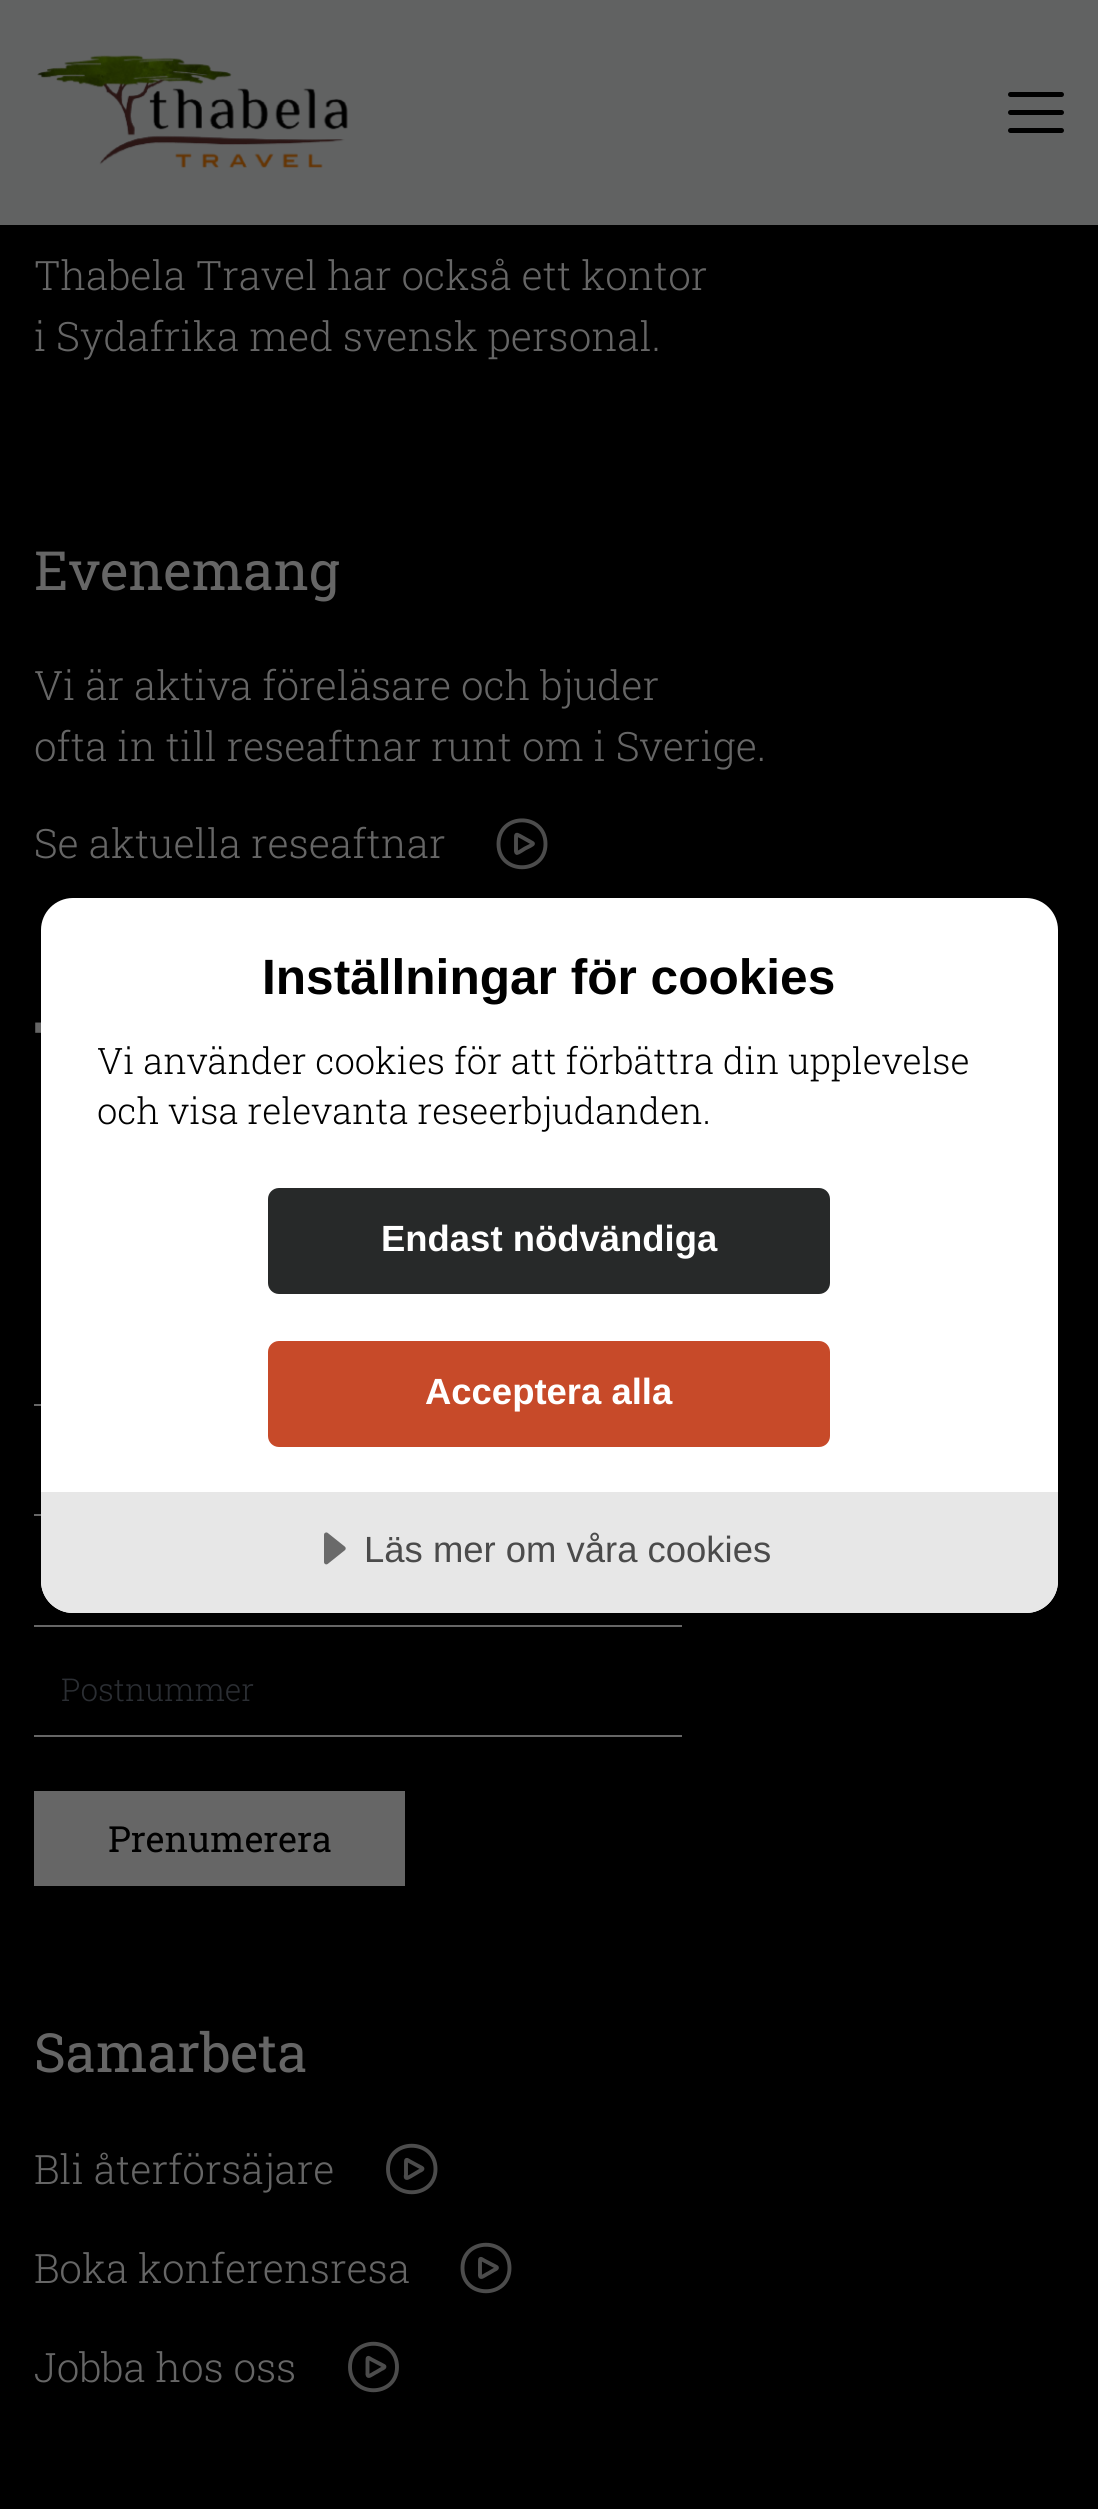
#include <cairo/cairo.h>
#include <math.h>
#include <stddef.h>

static cairo_t *cr;

static void use_color(int r, int g, int b) {
  cairo_set_source_rgb(cr, r / 255.0, g / 255.0, b / 255.0);
}

static void text(double x, double y, const char *s, const char *family, double size, int italic, int bold, int r, int g, int b) {
  cairo_select_font_face(cr, family, italic ? CAIRO_FONT_SLANT_ITALIC : CAIRO_FONT_SLANT_NORMAL,
    bold ? CAIRO_FONT_WEIGHT_BOLD : CAIRO_FONT_WEIGHT_NORMAL);
  cairo_set_font_size(cr, size);
  use_color(r, g, b);
  cairo_move_to(cr, x, y);
  cairo_show_text(cr, s);
}

static void box(double x, double y, double w, double h, int r, int g, int b) {
  use_color(r, g, b);
  cairo_rectangle(cr, x, y, w, h);
  cairo_fill(cr);
}

static void round_rect(double x, double y, double w, double h, double r) {
  cairo_new_sub_path(cr);
  cairo_arc(cr, x + w - r, y + h - r, r, 0, M_PI / 2);
  cairo_arc(cr, x + r, y + h - r, r, M_PI / 2, M_PI);
  cairo_arc(cr, x + r, y + r, r, M_PI, 1.5 * M_PI);
  cairo_arc(cr, x + w - r, y + r, r, 1.5 * M_PI, 2 * M_PI);
  cairo_close_path(cr);
}

static void picture(const char *path, double x, double y, double w, double h) {
  cairo_surface_t *image = cairo_image_surface_create_from_png(path);
  cairo_save(cr);
  cairo_set_source_surface(cr, image, x, y);
  cairo_rectangle(cr, x, y, w, h);
  cairo_fill(cr);
  cairo_restore(cr);
  cairo_surface_destroy(image);
}

static void draw(void) {
  use_color(0, 0, 0);
  cairo_paint(cr);
  box(0, 0, 1098, 225, 97, 98, 98);
  picture("img_01.png", 37, 55, 311, 113);
  use_color(0, 0, 0);
  round_rect(1008, 92, 56, 5, 2.5);
  cairo_fill(cr);
  round_rect(1008, 110, 56, 5, 2.5);
  cairo_fill(cr);
  round_rect(1008, 128, 56, 5, 2.5);
  cairo_fill(cr);
  cairo_new_path(cr);
  cairo_move_to(cr, 545.5, 844);
  cairo_curve_to(cr, 545.5, 875, 498.5, 875, 498.5, 844);
  cairo_curve_to(cr, 498.5, 812.5, 545.5, 812.5, 545.5, 844);
  cairo_close_path(cr);
  cairo_move_to(cr, 532.5, 843);
  cairo_curve_to(cr, 534, 844, 531.5, 845, 530, 846);
  cairo_line_to(cr, 525, 848.5);
  cairo_curve_to(cr, 523.5, 849.5, 518, 853, 517, 853);
  cairo_curve_to(cr, 515.5, 852.5, 516, 849.5, 516, 849);
  cairo_line_to(cr, 516, 838.5);
  cairo_curve_to(cr, 516, 834, 516, 834, 520, 836);
  cairo_close_path(cr);
  use_color(76, 76, 76);
  cairo_set_line_width(cr, 3.9);
  cairo_set_line_cap(cr, CAIRO_LINE_CAP_ROUND);
  cairo_set_line_join(cr, CAIRO_LINE_JOIN_ROUND);
  cairo_stroke(cr);
  picture("img_02.png", 35, 1022, 6, 11);
  box(34, 1404, 7, 2, 102, 102, 102);
  box(34, 1514, 7, 2, 102, 102, 102);
  box(34, 1625, 648, 2, 102, 102, 102);
  box(34, 1735, 648, 2, 102, 102, 102);
  box(34, 1791, 371, 95, 102, 102, 102);
  cairo_new_path(cr);
  cairo_move_to(cr, 435.5, 2169);
  cairo_curve_to(cr, 435.5, 2200, 388, 2200, 388, 2169);
  cairo_curve_to(cr, 388, 2138, 435.5, 2138, 435.5, 2169);
  cairo_close_path(cr);
  cairo_move_to(cr, 422, 2168);
  cairo_curve_to(cr, 423.5, 2169, 421, 2170.5, 419.5, 2171);
  cairo_line_to(cr, 414.5, 2174);
  cairo_curve_to(cr, 413.5, 2174.5, 407.5, 2178.5, 406.5, 2178);
  cairo_curve_to(cr, 405, 2177.5, 406, 2175, 406, 2174.5);
  cairo_line_to(cr, 406, 2163.5);
  cairo_curve_to(cr, 406, 2159, 406, 2159, 410, 2161.5);
  cairo_close_path(cr);
  use_color(76, 76, 76);
  cairo_stroke(cr);
  cairo_new_path(cr);
  cairo_move_to(cr, 509.5, 2268);
  cairo_curve_to(cr, 509.5, 2299, 462.5, 2299, 462.5, 2268);
  cairo_curve_to(cr, 462.5, 2237, 509.5, 2237, 509.5, 2268);
  cairo_close_path(cr);
  cairo_move_to(cr, 496.5, 2267);
  cairo_curve_to(cr, 498, 2268, 495.5, 2269.5, 494, 2270);
  cairo_line_to(cr, 489, 2273);
  cairo_curve_to(cr, 487.5, 2273.5, 482, 2277.5, 481, 2277);
  cairo_curve_to(cr, 479.5, 2276.5, 480, 2274, 480, 2273.5);
  cairo_line_to(cr, 480, 2262.5);
  cairo_curve_to(cr, 480, 2258, 480, 2258, 484, 2260.5);
  cairo_close_path(cr);
  cairo_stroke(cr);
  cairo_new_path(cr);
  cairo_move_to(cr, 397, 2367);
  cairo_curve_to(cr, 397, 2398, 350, 2398, 350, 2367);
  cairo_curve_to(cr, 350, 2336, 397, 2336, 397, 2367);
  cairo_close_path(cr);
  cairo_move_to(cr, 384, 2366);
  cairo_curve_to(cr, 385.5, 2367, 383, 2368.5, 381.5, 2369);
  cairo_line_to(cr, 376.5, 2372);
  cairo_curve_to(cr, 375, 2372.5, 369.5, 2376.5, 368.5, 2376);
  cairo_curve_to(cr, 367, 2375.5, 367.5, 2373, 367.5, 2372.5);
  cairo_line_to(cr, 367.5, 2361.5);
  cairo_curve_to(cr, 367.5, 2357, 367.5, 2357, 371.5, 2359.5);
  cairo_close_path(cr);
  cairo_stroke(cr);
  use_color(255, 255, 255);
  round_rect(41, 898, 1017, 715, 32);
  cairo_fill(cr);
  use_color(39, 41, 41);
  round_rect(268, 1188, 562, 106, 11);
  cairo_fill(cr);
  use_color(199, 74, 41);
  round_rect(268, 1341, 562, 106, 11);
  cairo_fill(cr);
  use_color(231, 231, 231);
  cairo_new_path(cr);
  cairo_move_to(cr, 41, 1492);
  cairo_line_to(cr, 1058, 1492);
  cairo_line_to(cr, 1058, 1581);
  cairo_curve_to(cr, 1058, 1598.5, 1043.5, 1613, 1026, 1613);
  cairo_line_to(cr, 73, 1613);
  cairo_curve_to(cr, 55.5, 1613, 41, 1598.5, 41, 1581);
  cairo_close_path(cr);
  cairo_fill(cr);
  picture("img_03.png", 324, 1532, 22, 33);
  text(34, 290, "Thabela Travel har också ett kontor", "Roboto Slab Light", 40.5, 0, 0, 102, 102, 102);
  text(34, 351, "i Sydafrika med svensk personal.", "Roboto Slab Light", 40.5, 0, 0, 102, 102, 102);
  text(34, 590, "Evenemang", "Roboto Slab", 54, 0, 0, 102, 102, 102);
  text(34, 700, "Vi är aktiva föreläsare och bjuder", "Roboto Slab Light", 40.5, 0, 0, 102, 102, 102);
  text(34, 761, "ofta in till reseaftnar runt om i Sverige.", "Roboto Slab Light", 40.5, 0, 0, 102, 102, 102);
  text(34, 858, "Se aktuella reseaftnar", "Roboto Slab Light", 40.5, 0, 0, 102, 102, 102);
  text(61, 1701, "Postnummer", "Roboto Slab Light", 31.5, 0, 0, 43, 46, 51);
  text(108, 1852, "Prenumerera", "Roboto Slab", 36, 0, 0, 0, 0, 0);
  text(34, 2072, "Samarbeta", "Roboto Slab", 54, 0, 0, 102, 102, 102);
  text(34, 2184, "Bli återförsäjare", "Roboto Slab Light", 40.5, 0, 0, 102, 102, 102);
  text(34, 2283, "Boka konferensresa", "Roboto Slab Light", 40.5, 0, 0, 102, 102, 102);
  text(34, 2382, "Jobba hos oss", "Roboto Slab Light", 40.5, 0, 0, 102, 102, 102);
  text(262, 994, "Inställningar för cookies", "Liberation Sans", 49.6, 0, 1, 0, 0, 0);
  text(97, 1074, "Vi använder cookies för att förbättra din upplevelse", "Roboto Slab Light", 36.45, 0, 0, 0, 0, 0);
  text(97, 1124, "och visa relevanta reseerbjudanden.", "Roboto Slab Light", 36.45, 0, 0, 0, 0, 0);
  text(381, 1251, "Endast nödvändiga", "Liberation Sans", 36.45, 0, 1, 255, 255, 255);
  text(425, 1404, "Acceptera alla", "Liberation Sans", 36.45, 0, 1, 255, 255, 255);
  text(364, 1562, "Läs mer om våra cookies", "Liberation Sans", 36.45, 0, 0, 75, 75, 75);
}

int main(void) {
  cairo_surface_t *surface = cairo_image_surface_create(CAIRO_FORMAT_RGB24, 1098, 2509);
  cr = cairo_create(surface);
  cairo_font_options_t *options = cairo_font_options_create();
  cairo_font_options_set_hint_metrics(options, CAIRO_HINT_METRICS_OFF);
  cairo_font_options_set_hint_style(options, CAIRO_HINT_STYLE_NONE);
  cairo_set_font_options(cr, options);
  cairo_set_miter_limit(cr, 4);
  draw();
  cairo_surface_write_to_png(surface, "out.png");
  cairo_font_options_destroy(options);
  cairo_destroy(cr);
  cairo_surface_destroy(surface);
  return 0;
}
